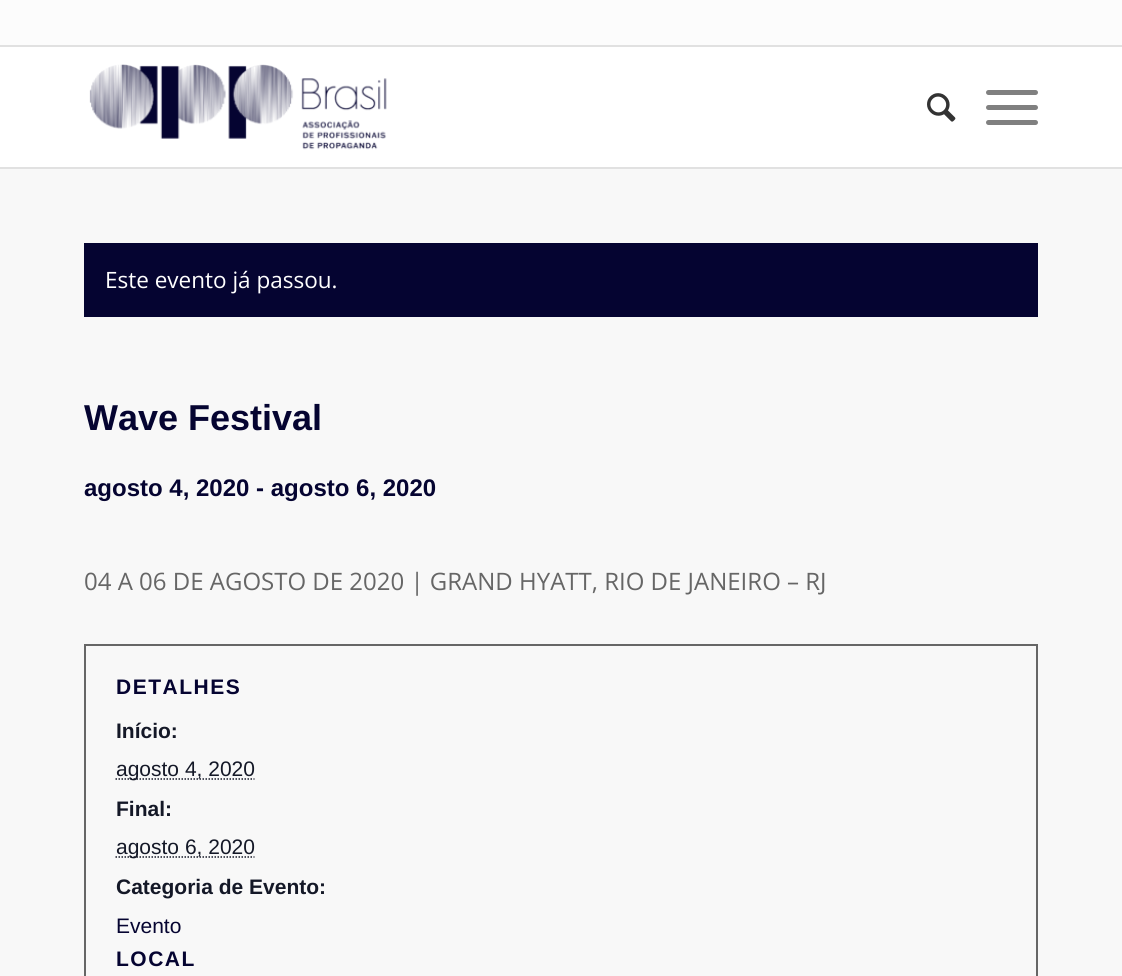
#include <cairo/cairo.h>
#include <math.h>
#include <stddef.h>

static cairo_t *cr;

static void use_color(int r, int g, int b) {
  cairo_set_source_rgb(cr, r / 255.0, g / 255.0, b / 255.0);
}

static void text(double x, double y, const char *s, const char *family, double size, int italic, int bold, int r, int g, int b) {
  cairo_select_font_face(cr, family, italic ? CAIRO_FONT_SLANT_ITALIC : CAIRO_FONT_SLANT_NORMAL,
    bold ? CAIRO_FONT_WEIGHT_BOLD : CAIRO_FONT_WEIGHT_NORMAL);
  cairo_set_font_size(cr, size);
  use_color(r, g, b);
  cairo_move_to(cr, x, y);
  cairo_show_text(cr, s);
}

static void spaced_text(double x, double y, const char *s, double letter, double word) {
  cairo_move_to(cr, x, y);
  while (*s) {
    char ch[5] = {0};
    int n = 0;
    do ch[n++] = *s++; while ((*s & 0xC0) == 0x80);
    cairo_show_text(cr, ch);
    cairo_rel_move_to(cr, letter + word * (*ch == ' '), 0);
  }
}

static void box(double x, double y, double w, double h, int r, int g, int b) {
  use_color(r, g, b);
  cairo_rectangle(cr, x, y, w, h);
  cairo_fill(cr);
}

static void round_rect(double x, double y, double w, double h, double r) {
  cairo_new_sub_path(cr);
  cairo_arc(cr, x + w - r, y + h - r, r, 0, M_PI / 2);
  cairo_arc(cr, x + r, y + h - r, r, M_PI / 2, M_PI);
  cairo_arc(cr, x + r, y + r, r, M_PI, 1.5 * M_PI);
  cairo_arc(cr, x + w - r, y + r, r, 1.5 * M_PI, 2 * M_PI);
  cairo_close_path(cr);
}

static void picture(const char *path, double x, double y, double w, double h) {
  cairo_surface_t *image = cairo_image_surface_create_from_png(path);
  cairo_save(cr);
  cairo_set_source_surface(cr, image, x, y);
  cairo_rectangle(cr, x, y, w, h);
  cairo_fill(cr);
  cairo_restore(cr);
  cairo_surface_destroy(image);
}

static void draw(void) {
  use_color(248, 248, 248);
  cairo_paint(cr);
  box(0, 0, 1122, 45, 252, 252, 252);
  box(0, 45, 1122, 2, 225, 225, 225);
  box(0, 47, 1122, 120, 255, 255, 255);
  box(0, 167, 1122, 2, 225, 225, 225);
  picture("img_01.png", 89, 64, 298, 86);
  picture("img_02.png", 927, 93, 29, 29);
  use_color(128, 128, 128);
  round_rect(986, 105, 52, 5, 2.5);
  cairo_fill(cr);
  round_rect(986, 90, 52, 5, 2.5);
  cairo_fill(cr);
  round_rect(986, 120, 52, 5, 2.5);
  cairo_fill(cr);
  box(84, 243, 954, 74, 5, 4, 49);
  cairo_rectangle(cr, 85, 645, 952, 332);
  use_color(102, 102, 102);
  cairo_stroke(cr);
  cairo_new_path(cr);
  cairo_move_to(cr, 115.5, 779);
  cairo_line_to(cr, 254.5, 779);
  use_color(20, 24, 39);
  cairo_set_line_width(cr, 1.5);
  cairo_set_dash(cr, (double[]){1.5, 1.5}, 2, 0);
  cairo_stroke(cr);
  cairo_new_path(cr);
  cairo_move_to(cr, 115.5, 857);
  cairo_line_to(cr, 254.5, 857);
  cairo_stroke(cr);
  text(105, 288, "Este evento já passou.", "Open Sans", 22.5, 0, 0, 255, 255, 255);
  text(84, 430, "Wave Festival", "Liberation Sans", 36, 0, 1, 5, 4, 49);
  text(84, 496, "agosto 4, 2020 - agosto 6, 2020", "Liberation Sans", 24, 0, 1, 5, 4, 49);
  text(84, 590, "04 A 06 DE AGOSTO DE 2020 | GRAND HYATT, RIO DE JANEIRO – RJ", "Open Sans", 24, 0, 0, 102, 102, 102);
  cairo_select_font_face(cr, "Liberation Sans", CAIRO_FONT_SLANT_NORMAL, CAIRO_FONT_WEIGHT_BOLD);
  cairo_set_font_size(cr, 21);
  use_color(5, 4, 49);
  spaced_text(116, 694, "DETALHES", 1.5, 0);
  text(116, 738, "Início:", "Liberation Sans", 21, 0, 1, 20, 24, 39);
  text(116, 776, "agosto 4, 2020", "Liberation Sans", 21, 0, 0, 20, 24, 39);
  text(116, 816, "Final:", "Liberation Sans", 21, 0, 1, 20, 24, 39);
  text(116, 854, "agosto 6, 2020", "Liberation Sans", 21, 0, 0, 20, 24, 39);
  text(116, 894, "Categoria de Evento:", "Liberation Sans", 21, 0, 1, 20, 24, 39);
  text(116, 933, "Evento", "Liberation Sans", 21, 0, 0, 5, 4, 49);
  cairo_select_font_face(cr, "Liberation Sans", CAIRO_FONT_SLANT_NORMAL, CAIRO_FONT_WEIGHT_BOLD);
  spaced_text(116, 966, "LOCAL", 1.5, 0);
}

int main(void) {
  cairo_surface_t *surface = cairo_image_surface_create(CAIRO_FORMAT_RGB24, 1122, 976);
  cr = cairo_create(surface);
  cairo_font_options_t *options = cairo_font_options_create();
  cairo_font_options_set_hint_metrics(options, CAIRO_HINT_METRICS_OFF);
  cairo_font_options_set_hint_style(options, CAIRO_HINT_STYLE_NONE);
  cairo_set_font_options(cr, options);
  cairo_set_miter_limit(cr, 4);
  draw();
  cairo_surface_write_to_png(surface, "out.png");
  cairo_font_options_destroy(options);
  cairo_destroy(cr);
  cairo_surface_destroy(surface);
  return 0;
}
